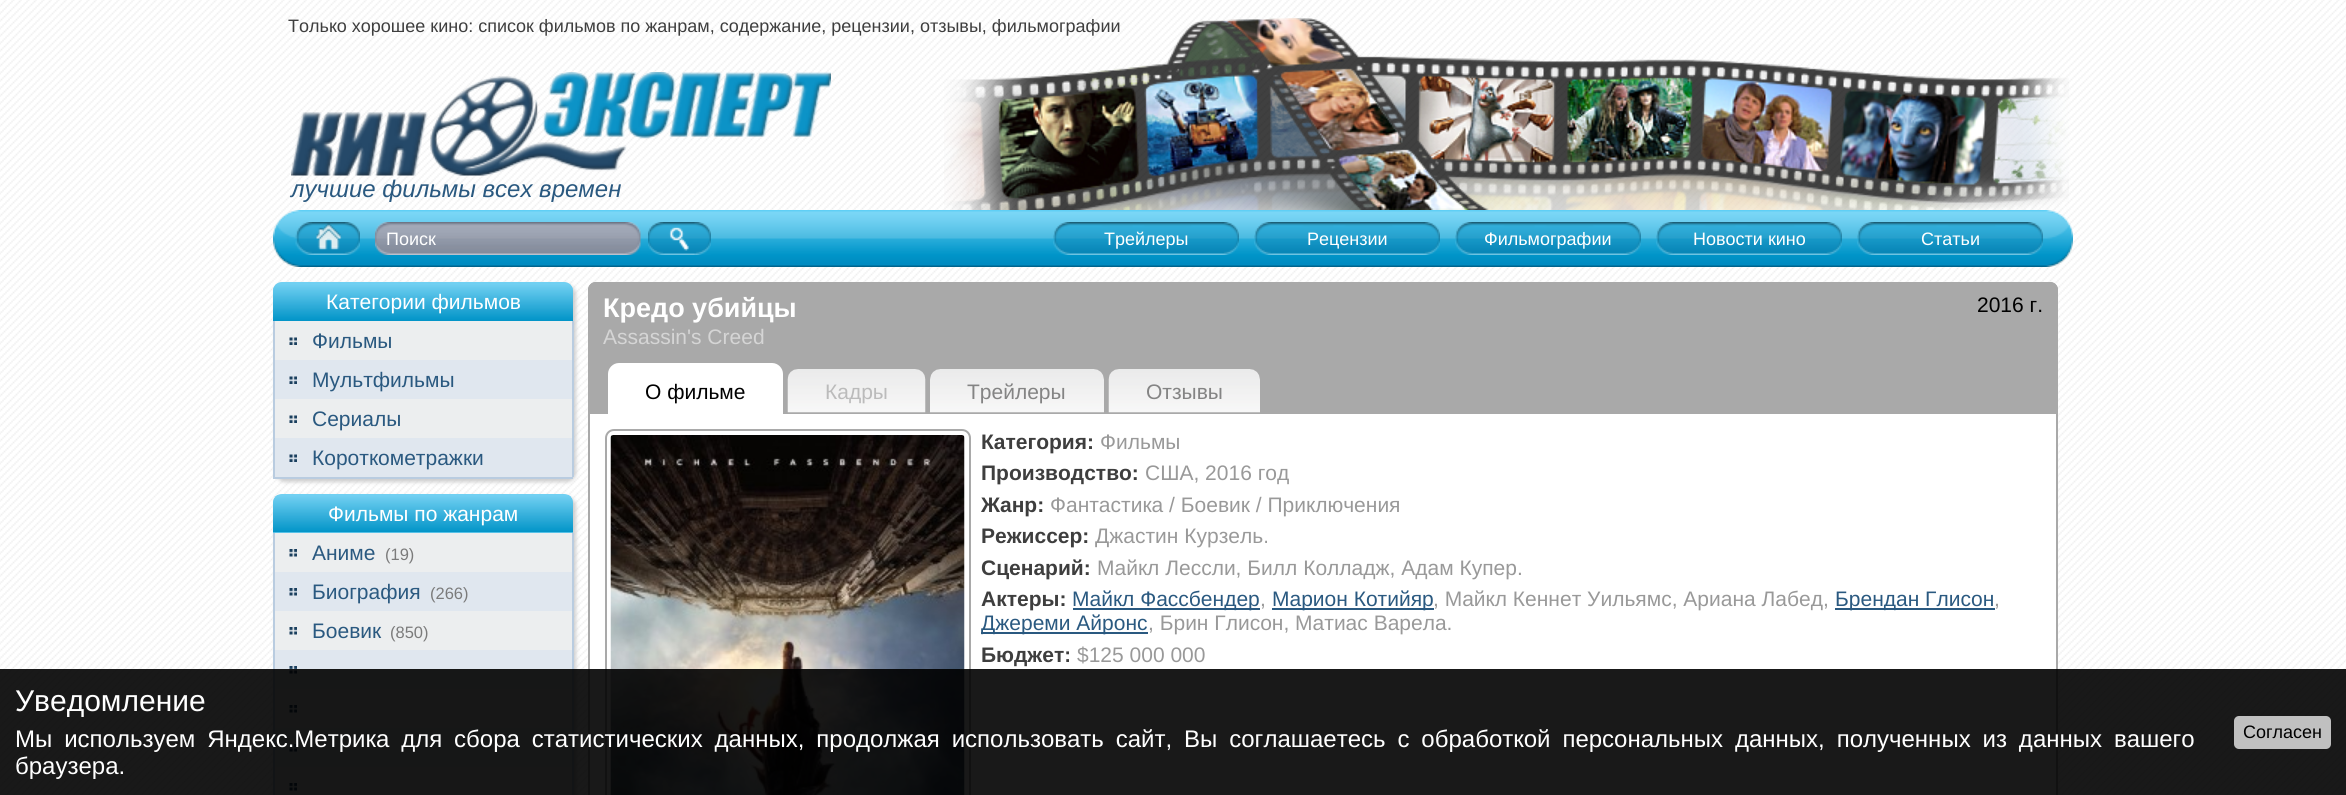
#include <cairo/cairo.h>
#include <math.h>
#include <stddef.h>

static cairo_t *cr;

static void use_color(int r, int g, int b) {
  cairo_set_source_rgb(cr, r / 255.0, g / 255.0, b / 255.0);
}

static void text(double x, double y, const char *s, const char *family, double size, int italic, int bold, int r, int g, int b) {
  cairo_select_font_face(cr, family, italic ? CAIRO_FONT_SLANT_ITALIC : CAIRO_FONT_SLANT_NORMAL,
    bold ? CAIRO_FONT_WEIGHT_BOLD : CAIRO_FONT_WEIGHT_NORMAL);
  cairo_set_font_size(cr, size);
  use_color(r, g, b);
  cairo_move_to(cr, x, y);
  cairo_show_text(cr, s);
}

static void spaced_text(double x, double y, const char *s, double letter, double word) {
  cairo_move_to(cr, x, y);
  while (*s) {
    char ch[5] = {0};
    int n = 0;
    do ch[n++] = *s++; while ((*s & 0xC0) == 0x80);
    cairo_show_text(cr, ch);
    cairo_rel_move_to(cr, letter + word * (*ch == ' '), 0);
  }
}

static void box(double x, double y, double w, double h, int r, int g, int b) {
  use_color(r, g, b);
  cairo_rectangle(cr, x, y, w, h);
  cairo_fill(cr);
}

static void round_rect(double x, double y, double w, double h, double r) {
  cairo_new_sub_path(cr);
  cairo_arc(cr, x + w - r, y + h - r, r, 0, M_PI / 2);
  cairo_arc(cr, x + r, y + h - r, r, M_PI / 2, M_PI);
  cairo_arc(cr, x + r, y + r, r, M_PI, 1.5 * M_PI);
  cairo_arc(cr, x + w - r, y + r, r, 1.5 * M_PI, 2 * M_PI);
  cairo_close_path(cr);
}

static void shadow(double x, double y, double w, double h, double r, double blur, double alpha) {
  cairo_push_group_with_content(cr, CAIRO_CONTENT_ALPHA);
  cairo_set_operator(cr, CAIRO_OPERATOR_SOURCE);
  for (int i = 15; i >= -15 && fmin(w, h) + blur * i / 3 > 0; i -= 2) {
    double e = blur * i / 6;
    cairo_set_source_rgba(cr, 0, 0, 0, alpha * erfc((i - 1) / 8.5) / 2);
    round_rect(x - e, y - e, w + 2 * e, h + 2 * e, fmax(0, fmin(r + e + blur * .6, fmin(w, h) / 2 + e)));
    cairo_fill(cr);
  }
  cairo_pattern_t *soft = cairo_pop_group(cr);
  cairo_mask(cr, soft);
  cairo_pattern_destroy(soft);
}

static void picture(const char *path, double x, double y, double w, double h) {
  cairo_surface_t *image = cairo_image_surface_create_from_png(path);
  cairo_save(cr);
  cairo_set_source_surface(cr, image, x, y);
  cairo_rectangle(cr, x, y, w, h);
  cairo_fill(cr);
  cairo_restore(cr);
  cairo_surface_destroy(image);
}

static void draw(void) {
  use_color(255, 255, 255);
  cairo_paint(cr);
  picture("img_01.png", 0, 0, 2346, 795);
  picture("img_02.png", 944, 18, 1125, 192);
  picture("img_03.png", 291, 72, 540, 104);
  picture("img_04.png", 273, 210, 1800, 57);
  picture("img_05.png", 295, 222, 65, 33);
  picture("img_06.png", 375, 222, 266, 33);
  picture("img_07.png", 648, 222, 63, 33);
  picture("img_08.png", 1053, 222, 186, 33);
  picture("img_09.png", 1254, 222, 186, 33);
  picture("img_10.png", 1455, 222, 186, 33);
  picture("img_11.png", 1656, 222, 186, 33);
  picture("img_08.png", 1857, 222, 186, 33);
  use_color(205, 205, 205);
  shadow(276, 285, 300, 197, 9, 2, 1);
  use_color(236, 238, 239);
  cairo_new_path(cr);
  cairo_move_to(cr, 282, 282);
  cairo_line_to(cr, 564, 282);
  cairo_curve_to(cr, 569, 282, 573, 286, 573, 291);
  cairo_line_to(cr, 573, 479);
  cairo_line_to(cr, 273, 479);
  cairo_line_to(cr, 273, 291);
  cairo_curve_to(cr, 273, 286, 277, 282, 282, 282);
  cairo_close_path(cr);
  cairo_fill(cr);
  box(273, 477, 300, 2, 185, 204, 224);
  use_color(113, 208, 242);
  cairo_new_path(cr);
  cairo_move_to(cr, 282, 282);
  cairo_line_to(cr, 564, 282);
  cairo_curve_to(cr, 569, 282, 573, 286, 573, 291);
  cairo_line_to(cr, 573, 321);
  cairo_line_to(cr, 273, 321);
  cairo_line_to(cr, 273, 291);
  cairo_curve_to(cr, 273, 286, 277, 282, 282, 282);
  cairo_close_path(cr);
  cairo_fill(cr);
  picture("img_12.png", 273, 283, 300, 38);
  box(572, 321, 2, 156, 185, 204, 224);
  box(273, 321, 2, 156, 185, 204, 224);
  picture("img_13.png", 289, 337, 8, 8);
  box(275, 360, 297, 39, 224, 231, 239);
  picture("img_14.png", 289, 376, 8, 8);
  picture("img_13.png", 289, 415, 8, 8);
  box(275, 438, 297, 39, 224, 231, 239);
  picture("img_14.png", 289, 454, 8, 8);
  use_color(205, 205, 205);
  shadow(276, 497, 300, 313, 9, 2, 1);
  use_color(236, 238, 239);
  cairo_new_path(cr);
  cairo_move_to(cr, 282, 494);
  cairo_line_to(cr, 564, 494);
  cairo_curve_to(cr, 569, 494, 573, 498, 573, 503);
  cairo_line_to(cr, 573, 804);
  cairo_line_to(cr, 273, 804);
  cairo_line_to(cr, 273, 503);
  cairo_curve_to(cr, 273, 498, 277, 494, 282, 494);
  cairo_close_path(cr);
  cairo_fill(cr);
  use_color(113, 208, 242);
  cairo_new_path(cr);
  cairo_move_to(cr, 282, 494);
  cairo_line_to(cr, 564, 494);
  cairo_curve_to(cr, 569, 494, 573, 498, 573, 503);
  cairo_line_to(cr, 573, 533);
  cairo_line_to(cr, 273, 533);
  cairo_line_to(cr, 273, 503);
  cairo_curve_to(cr, 273, 498, 277, 494, 282, 494);
  cairo_close_path(cr);
  cairo_fill(cr);
  picture("img_15.png", 273, 495, 300, 38);
  box(572, 533, 2, 262, 185, 204, 224);
  box(273, 533, 2, 262, 185, 204, 224);
  picture("img_16.png", 289, 549, 8, 8);
  box(275, 572, 297, 39, 224, 231, 239);
  picture("img_17.png", 289, 588, 8, 8);
  picture("img_16.png", 289, 627, 8, 8);
  box(275, 650, 297, 39, 224, 231, 239);
  picture("img_17.png", 289, 666, 8, 8);
  picture("img_16.png", 289, 705, 8, 8);
  box(275, 728, 297, 39, 224, 231, 239);
  picture("img_17.png", 289, 744, 8, 8);
  picture("img_16.png", 289, 783, 8, 8);
  use_color(255, 255, 255);
  cairo_new_path(cr);
  cairo_move_to(cr, 596, 283);
  cairo_line_to(cr, 2050, 283);
  cairo_curve_to(cr, 2054, 283, 2057, 286, 2057, 290);
  cairo_line_to(cr, 2057, 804);
  cairo_line_to(cr, 589, 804);
  cairo_line_to(cr, 589, 290);
  cairo_curve_to(cr, 589, 286, 592, 283, 596, 283);
  cairo_close_path(cr);
  cairo_fill_preserve(cr);
  use_color(169, 169, 169);
  cairo_stroke(cr);
  cairo_new_path(cr);
  cairo_move_to(cr, 596, 282);
  cairo_line_to(cr, 2050, 282);
  cairo_curve_to(cr, 2054.5, 282, 2058, 285.5, 2058, 290);
  cairo_line_to(cr, 2058, 414);
  cairo_line_to(cr, 588, 414);
  cairo_line_to(cr, 588, 290);
  cairo_curve_to(cr, 588, 285.5, 591.5, 282, 596, 282);
  cairo_close_path(cr);
  cairo_fill(cr);
  use_color(255, 255, 255);
  cairo_new_path(cr);
  cairo_move_to(cr, 619, 363);
  cairo_line_to(cr, 772, 363);
  cairo_curve_to(cr, 778, 363, 783, 368, 783, 374);
  cairo_line_to(cr, 783, 414);
  cairo_line_to(cr, 608, 414);
  cairo_line_to(cr, 608, 374);
  cairo_curve_to(cr, 608, 368, 613, 363, 619, 363);
  cairo_close_path(cr);
  cairo_fill(cr);
  picture("img_18.png", 787, 369, 139, 44);
  picture("img_19.png", 930, 369, 174, 44);
  picture("img_20.png", 1108, 369, 152, 44);
  round_rect(606, 430, 364, 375, 8);
  use_color(169, 169, 169);
  cairo_stroke(cr);
  picture("img_21.png", 610, 435, 355, 360);
  box(1073, 608, 187, 2, 42, 89, 128);
  box(1272, 608, 162, 2, 42, 89, 128);
  box(1835, 608, 160, 2, 42, 89, 128);
  box(981, 632, 167, 2, 42, 89, 128);
  cairo_set_source_rgba(cr, 0, 0, 0, 0.9);
  cairo_rectangle(cr, 0, 669, 2346, 126);
  cairo_fill(cr);
  use_color(192, 192, 192);
  round_rect(2234, 716, 97, 33, 5);
  cairo_fill(cr);
  text(288, 32, "Только хорошее кино: список фильмов по жанрам, содержание, рецензии, отзывы, фильмографии", "Liberation Sans", 18, 0, 0, 62, 62, 62);
  text(291, 197, "лучшие фильмы всех времен", "Liberation Sans", 24, 1, 0, 42, 89, 128);
  text(386, 245, "Поиск", "Liberation Sans", 18, 0, 0, 255, 255, 255);
  text(1104, 245, "Трейлеры", "Liberation Sans", 18, 0, 0, 255, 255, 255);
  text(1307, 245, "Рецензии", "Liberation Sans", 18, 0, 0, 255, 255, 255);
  text(1484, 245, "Фильмографии", "Liberation Sans", 18, 0, 0, 255, 255, 255);
  text(1693, 245, "Новости кино", "Liberation Sans", 18, 0, 0, 255, 255, 255);
  text(1921, 245, "Статьи", "Liberation Sans", 18, 0, 0, 255, 255, 255);
  text(326, 309, "Категории фильмов", "Liberation Sans", 21, 0, 0, 255, 255, 255);
  text(312, 348, "Фильмы", "Liberation Sans", 21, 0, 0, 42, 89, 128);
  text(312, 387, "Мультфильмы", "Liberation Sans", 21, 0, 0, 42, 89, 128);
  text(312, 426, "Сериалы", "Liberation Sans", 21, 0, 0, 42, 89, 128);
  text(312, 465, "Короткометражки", "Liberation Sans", 21, 0, 0, 42, 89, 128);
  text(328, 521, "Фильмы по жанрам", "Liberation Sans", 21, 0, 0, 255, 255, 255);
  text(312, 560, "Аниме", "Liberation Sans", 21, 0, 0, 42, 89, 128);
  text(385, 560, "(19)", "Liberation Sans", 16.5, 0, 0, 123, 123, 123);
  text(312, 599, "Биография", "Liberation Sans", 21, 0, 0, 42, 89, 128);
  text(430, 599, "(266)", "Liberation Sans", 16.5, 0, 0, 123, 123, 123);
  text(312, 638, "Боевик", "Liberation Sans", 21, 0, 0, 42, 89, 128);
  text(390, 638, "(850)", "Liberation Sans", 16.5, 0, 0, 123, 123, 123);
  text(603, 317, "Кредо убийцы", "Liberation Sans", 27, 0, 1, 255, 255, 255);
  text(1977, 312, "2016 г.", "Liberation Sans", 21, 0, 0, 0, 0, 0);
  text(603, 344, "Assassin's Creed", "Liberation Sans", 21, 0, 0, 213, 213, 213);
  text(645, 399, "О фильме", "Liberation Sans", 21, 0, 0, 0, 0, 0);
  text(825, 399, "Кадры", "Liberation Sans", 21, 0, 0, 187, 187, 187);
  text(967, 399, "Трейлеры", "Liberation Sans", 21, 0, 0, 132, 132, 132);
  text(1146, 399, "Отзывы", "Liberation Sans", 21, 0, 0, 132, 132, 132);
  text(981, 449, "Категория:", "Liberation Sans", 21, 0, 1, 62, 62, 62);
  text(1100, 449, "Фильмы", "Liberation Sans", 21, 0, 0, 153, 153, 153);
  text(981, 480, "Производство:", "Liberation Sans", 21, 0, 1, 62, 62, 62);
  text(1145, 480, "США, 2016 год", "Liberation Sans", 21, 0, 0, 153, 153, 153);
  text(981, 512, "Жанр:", "Liberation Sans", 21, 0, 1, 62, 62, 62);
  text(1050, 512, "Фантастика / Боевик / Приключения", "Liberation Sans", 21, 0, 0, 153, 153, 153);
  text(981, 543, "Режиссер:", "Liberation Sans", 21, 0, 1, 62, 62, 62);
  text(1095, 543, "Джастин Курзель.", "Liberation Sans", 21, 0, 0, 153, 153, 153);
  text(981, 575, "Сценарий:", "Liberation Sans", 21, 0, 1, 62, 62, 62);
  text(1097, 575, "Майкл Лессли, Билл Колладж, Адам Купер.", "Liberation Sans", 21, 0, 0, 153, 153, 153);
  text(981, 606, "Актеры:", "Liberation Sans", 21, 0, 1, 62, 62, 62);
  text(1072, 606, "Майкл Фассбендер", "Liberation Sans", 21, 0, 0, 42, 89, 128);
  text(1260, 606, ",", "Liberation Sans", 21, 0, 0, 153, 153, 153);
  text(1272, 606, "Марион Котийяр", "Liberation Sans", 21, 0, 0, 42, 89, 128);
  text(1433, 606, ", Майкл Кеннет Уильямс, Ариана Лабед,", "Liberation Sans", 21, 0, 0, 153, 153, 153);
  text(1835, 606, "Брендан Глисон", "Liberation Sans", 21, 0, 0, 42, 89, 128);
  text(1994, 606, ",", "Liberation Sans", 21, 0, 0, 153, 153, 153);
  text(981, 630, "Джереми Айронс", "Liberation Sans", 21, 0, 0, 42, 89, 128);
  text(1148, 630, ", Брин Глисон, Матиас Варела.", "Liberation Sans", 21, 0, 0, 153, 153, 153);
  text(981, 662, "Бюджет:", "Liberation Sans", 21, 0, 1, 62, 62, 62);
  text(1077, 662, "$125 000 000", "Liberation Sans", 21, 0, 0, 153, 153, 153);
  text(15, 711, "Уведомление", "Liberation Sans", 30, 0, 0, 255, 255, 255);
  cairo_set_font_size(cr, 24);
  spaced_text(15, 747, "Мы используем Яндекс.Метрика для сбора статистических данных, продолжая использовать сайт, Вы соглашаетесь с обработкой персональных данных, полученных из данных вашего", 0, 5.25);
  text(15, 774, "браузера.", "Liberation Sans", 24, 0, 0, 255, 255, 255);
  text(2243, 738, "Согласен", "Liberation Sans", 18, 0, 0, 0, 0, 0);
}

int main(void) {
  cairo_surface_t *surface = cairo_image_surface_create(CAIRO_FORMAT_RGB24, 2346, 795);
  cr = cairo_create(surface);
  cairo_font_options_t *options = cairo_font_options_create();
  cairo_font_options_set_hint_metrics(options, CAIRO_HINT_METRICS_OFF);
  cairo_font_options_set_hint_style(options, CAIRO_HINT_STYLE_NONE);
  cairo_set_font_options(cr, options);
  cairo_set_miter_limit(cr, 4);
  draw();
  cairo_surface_write_to_png(surface, "out.png");
  cairo_font_options_destroy(options);
  cairo_destroy(cr);
  cairo_surface_destroy(surface);
  return 0;
}
